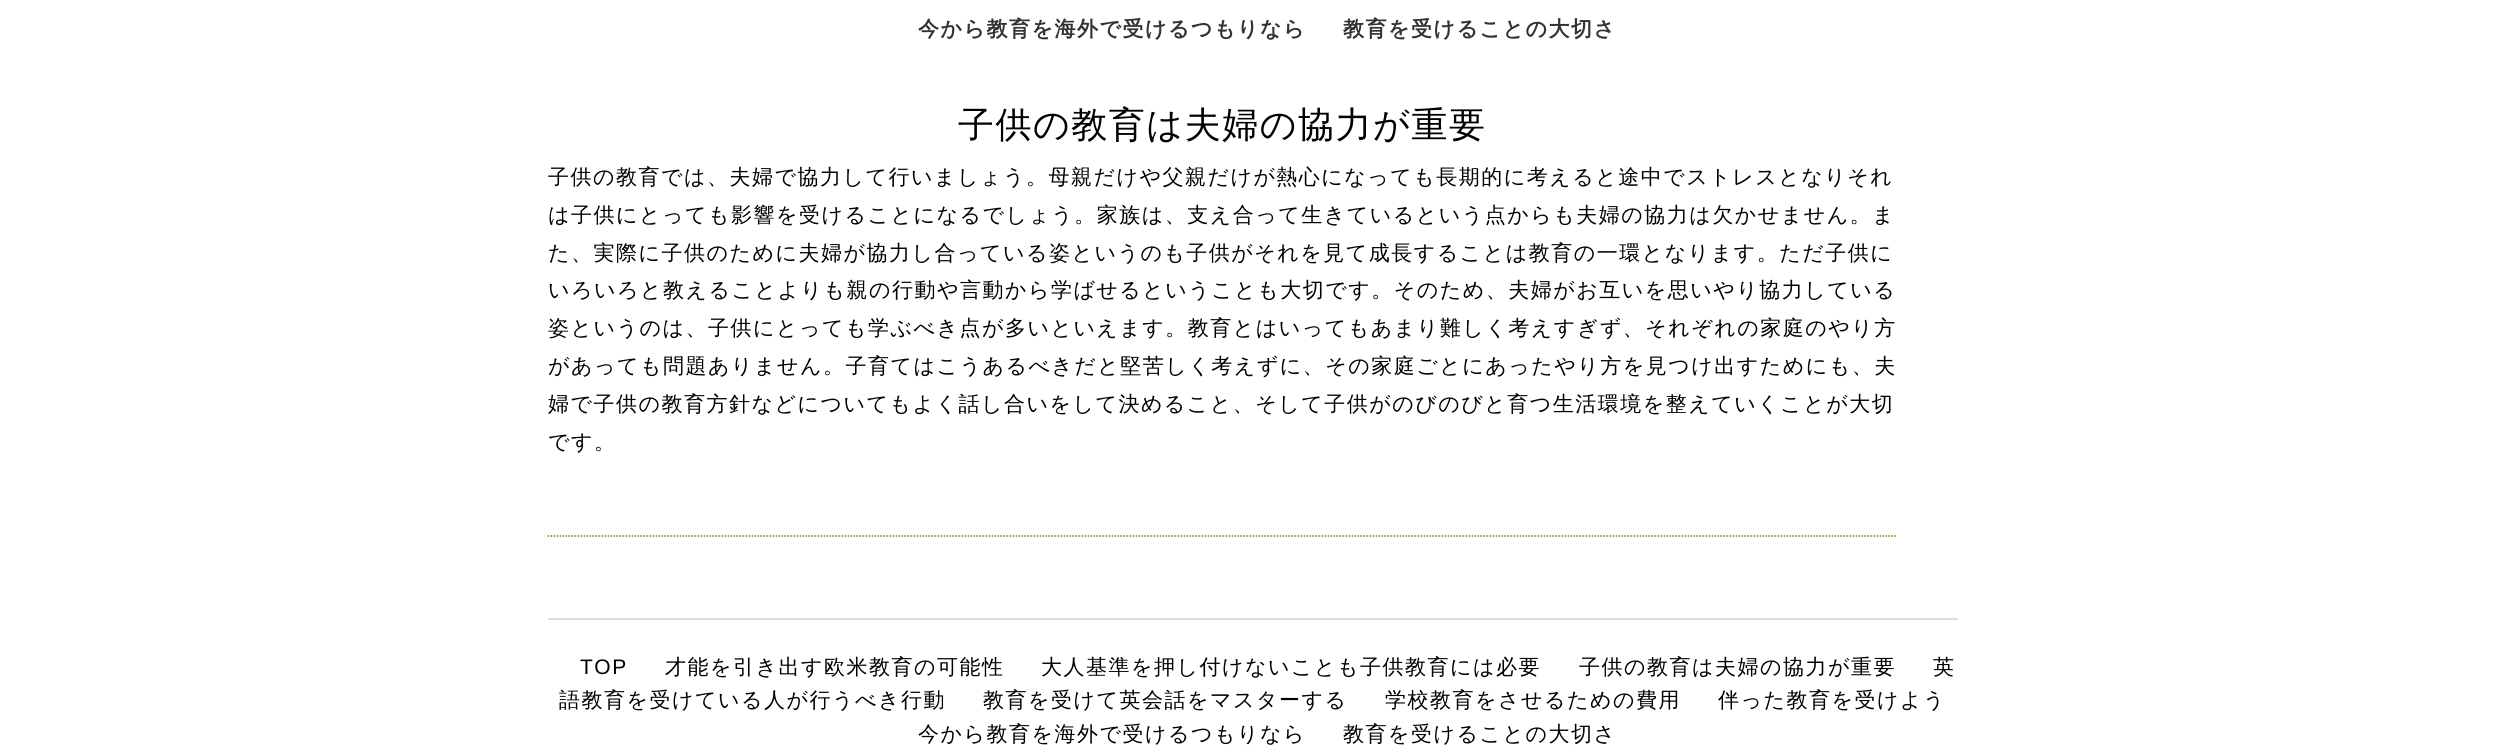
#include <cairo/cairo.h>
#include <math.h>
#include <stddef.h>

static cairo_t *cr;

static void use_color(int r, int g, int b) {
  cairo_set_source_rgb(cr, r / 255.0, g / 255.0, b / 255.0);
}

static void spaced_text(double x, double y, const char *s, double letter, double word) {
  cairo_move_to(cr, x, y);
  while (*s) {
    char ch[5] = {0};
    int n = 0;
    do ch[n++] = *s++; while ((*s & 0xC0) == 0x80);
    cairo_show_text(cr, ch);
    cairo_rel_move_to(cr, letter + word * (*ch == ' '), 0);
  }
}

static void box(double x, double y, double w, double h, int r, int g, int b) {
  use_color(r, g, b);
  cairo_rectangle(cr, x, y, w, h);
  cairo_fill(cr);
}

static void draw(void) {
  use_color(255, 255, 255);
  cairo_paint(cr);
  cairo_new_path(cr);
  cairo_move_to(cr, 547.5, 536);
  cairo_line_to(cr, 1897.5, 536);
  use_color(145, 119, 0);
  cairo_set_line_width(cr, 1.5);
  cairo_set_dash(cr, (double[]){1.5, 1.5}, 2, 0);
  cairo_stroke(cr);
  box(548, 618, 1410, 2, 221, 221, 221);
  cairo_select_font_face(cr, "WenQuanYi Zen Hei", CAIRO_FONT_SLANT_NORMAL, CAIRO_FONT_WEIGHT_BOLD);
  cairo_set_font_size(cr, 21);
  use_color(51, 51, 51);
  spaced_text(918, 36, "今から教育を海外で受けるつもりなら", 1.5, 0);
  spaced_text(1343, 36, "教育を受けることの大切さ", 1.5, 0);
  cairo_select_font_face(cr, "WenQuanYi Zen Hei Medium", CAIRO_FONT_SLANT_NORMAL, CAIRO_FONT_WEIGHT_NORMAL);
  cairo_set_font_size(cr, 36);
  use_color(0, 0, 0);
  spaced_text(958, 137, "子供の教育は夫婦の協力が重要", 1.5, 0);
  cairo_set_font_size(cr, 21);
  spaced_text(548, 184, "子供の教育では、夫婦で協力して行いましょう。母親だけや父親だけが熱心になっても長期的に考えると途中でストレスとなりそれ", 1.5, 0);
  spaced_text(548, 222, "は子供にとっても影響を受けることになるでしょう。家族は、支え合って生きているという点からも夫婦の協力は欠かせません。ま", 1.5, 0);
  spaced_text(548, 260, "た、実際に子供のために夫婦が協力し合っている姿というのも子供がそれを見て成長することは教育の一環となります。ただ子供に", 1.5, 0);
  spaced_text(548, 297, "いろいろと教えることよりも親の行動や言動から学ばせるということも大切です。そのため、夫婦がお互いを思いやり協力している", 1.5, 0);
  spaced_text(548, 335, "姿というのは、子供にとっても学ぶべき点が多いといえます。教育とはいってもあまり難しく考えすぎず、それぞれの家庭のやり方", 1.5, 0);
  spaced_text(548, 373, "があっても問題ありません。子育てはこうあるべきだと堅苦しく考えずに、その家庭ごとにあったやり方を見つけ出すためにも、夫", 1.5, 0);
  spaced_text(548, 411, "婦で子供の教育方針などについてもよく話し合いをして決めること、そして子供がのびのびと育つ生活環境を整えていくことが大切", 1.5, 0);
  spaced_text(548, 449, "です。", 1.5, 0);
  cairo_select_font_face(cr, "Liberation Sans", CAIRO_FONT_SLANT_NORMAL, CAIRO_FONT_WEIGHT_NORMAL);
  spaced_text(580, 674, "TOP", 1.5, 0);
  cairo_select_font_face(cr, "WenQuanYi Zen Hei Medium", CAIRO_FONT_SLANT_NORMAL, CAIRO_FONT_WEIGHT_NORMAL);
  spaced_text(665, 674, "才能を引き出す欧米教育の可能性", 1.5, 0);
  spaced_text(1041, 674, "大人基準を押し付けないことも子供教育には必要", 1.5, 0);
  spaced_text(1579, 674, "子供の教育は夫婦の協力が重要", 1.5, 0);
  spaced_text(1933, 674, "英", 1.5, 0);
  spaced_text(559, 707, "語教育を受けている人が行うべき行動", 1.5, 0);
  spaced_text(983, 707, "教育を受けて英会話をマスターする", 1.5, 0);
  spaced_text(1385, 707, "学校教育をさせるための費用", 1.5, 0);
  spaced_text(1718, 707, "伴った教育を受けよう", 1.5, 0);
  spaced_text(918, 741, "今から教育を海外で受けるつもりなら", 1.5, 0);
  spaced_text(1343, 741, "教育を受けることの大切さ", 1.5, 0);
}

int main(void) {
  cairo_surface_t *surface = cairo_image_surface_create(CAIRO_FORMAT_RGB24, 2505, 756);
  cr = cairo_create(surface);
  cairo_font_options_t *options = cairo_font_options_create();
  cairo_font_options_set_hint_metrics(options, CAIRO_HINT_METRICS_OFF);
  cairo_font_options_set_hint_style(options, CAIRO_HINT_STYLE_NONE);
  cairo_set_font_options(cr, options);
  cairo_set_miter_limit(cr, 4);
  draw();
  cairo_surface_write_to_png(surface, "out.png");
  cairo_font_options_destroy(options);
  cairo_destroy(cr);
  cairo_surface_destroy(surface);
  return 0;
}
